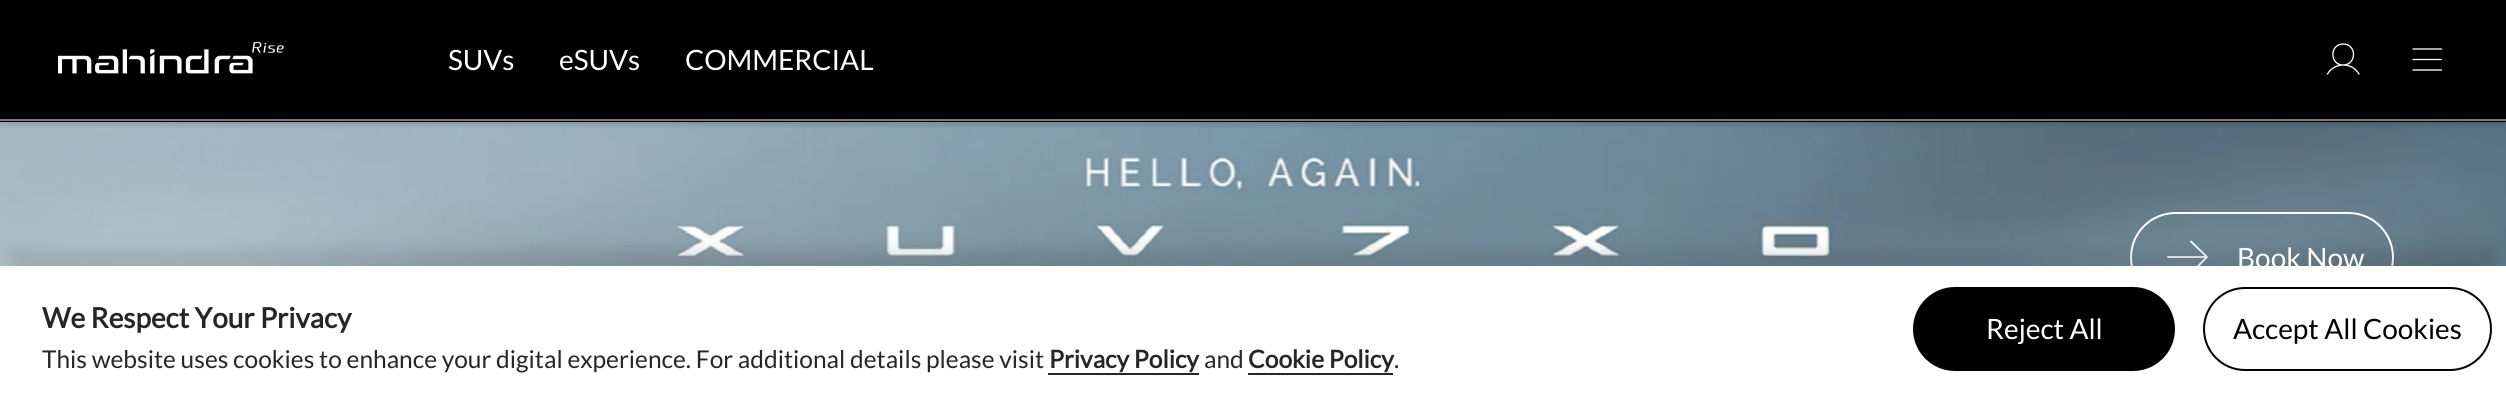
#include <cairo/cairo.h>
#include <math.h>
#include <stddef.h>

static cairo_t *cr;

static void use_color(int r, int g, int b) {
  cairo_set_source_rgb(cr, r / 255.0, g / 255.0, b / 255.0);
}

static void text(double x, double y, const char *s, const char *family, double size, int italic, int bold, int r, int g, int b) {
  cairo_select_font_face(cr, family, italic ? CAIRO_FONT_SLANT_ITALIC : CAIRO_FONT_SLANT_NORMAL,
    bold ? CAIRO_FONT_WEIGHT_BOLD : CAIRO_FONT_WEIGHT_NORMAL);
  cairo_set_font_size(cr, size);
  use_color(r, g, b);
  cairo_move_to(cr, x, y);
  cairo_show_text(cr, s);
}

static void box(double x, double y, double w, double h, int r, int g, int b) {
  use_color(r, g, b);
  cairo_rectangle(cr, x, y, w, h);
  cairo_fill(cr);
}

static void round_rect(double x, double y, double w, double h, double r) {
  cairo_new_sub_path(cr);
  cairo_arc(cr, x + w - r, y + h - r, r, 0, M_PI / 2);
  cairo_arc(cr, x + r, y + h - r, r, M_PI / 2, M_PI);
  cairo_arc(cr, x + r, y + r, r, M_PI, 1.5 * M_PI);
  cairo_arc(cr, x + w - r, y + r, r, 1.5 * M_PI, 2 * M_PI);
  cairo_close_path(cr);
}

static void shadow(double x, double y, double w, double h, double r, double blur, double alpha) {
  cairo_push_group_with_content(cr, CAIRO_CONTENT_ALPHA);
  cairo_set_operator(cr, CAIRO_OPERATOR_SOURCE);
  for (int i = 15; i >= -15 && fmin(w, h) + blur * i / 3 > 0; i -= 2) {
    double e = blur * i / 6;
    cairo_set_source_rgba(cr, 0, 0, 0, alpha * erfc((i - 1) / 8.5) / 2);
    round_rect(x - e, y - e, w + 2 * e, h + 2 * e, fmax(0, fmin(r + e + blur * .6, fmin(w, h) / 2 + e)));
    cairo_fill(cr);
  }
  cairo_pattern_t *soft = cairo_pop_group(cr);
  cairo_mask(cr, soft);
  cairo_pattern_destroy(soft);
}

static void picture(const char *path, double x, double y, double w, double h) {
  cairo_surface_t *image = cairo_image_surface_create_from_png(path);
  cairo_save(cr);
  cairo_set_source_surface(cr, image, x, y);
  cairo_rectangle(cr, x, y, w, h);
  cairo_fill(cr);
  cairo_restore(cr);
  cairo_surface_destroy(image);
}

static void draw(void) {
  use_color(0, 0, 0);
  cairo_paint(cr);
  picture("img_02.png", 0, 122, 2506, 144);
  cairo_save(cr);
  cairo_rectangle(cr, 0, 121, 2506, 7);
  cairo_clip(cr);
  shadow(0, 4, 2506, 120, 0, 3.5, 0.2);
  cairo_restore(cr);
  box(0, 119, 2506, 2, 123, 123, 123);
  picture("img_01.png", 58, 42, 226, 32);
  cairo_new_path(cr);
  cairo_move_to(cr, 2343, 65);
  cairo_curve_to(cr, 2357, 65, 2357, 44, 2343, 44);
  cairo_curve_to(cr, 2329.5, 44, 2329.5, 65, 2343, 65);
  cairo_close_path(cr);
  cairo_move_to(cr, 2327.5, 74);
  cairo_curve_to(cr, 2334.5, 62, 2352, 62, 2359, 74);
  use_color(255, 255, 255);
  cairo_set_line_width(cr, 1.3);
  cairo_set_line_cap(cr, CAIRO_LINE_CAP_ROUND);
  cairo_set_line_join(cr, CAIRO_LINE_JOIN_ROUND);
  cairo_stroke(cr);
  cairo_new_path(cr);
  cairo_move_to(cr, 2413, 59.5);
  cairo_line_to(cr, 2441.5, 59.5);
  cairo_move_to(cr, 2413, 49);
  cairo_line_to(cr, 2441.5, 49);
  cairo_move_to(cr, 2413, 70);
  cairo_line_to(cr, 2441.5, 70);
  cairo_stroke(cr);
  round_rect(2131, 213, 262, 89, 44.5);
  cairo_set_line_width(cr, 2);
  cairo_set_line_cap(cr, CAIRO_LINE_CAP_BUTT);
  cairo_set_line_join(cr, CAIRO_LINE_JOIN_MITER);
  cairo_stroke(cr);
  cairo_new_path(cr);
  cairo_move_to(cr, 2168, 257);
  cairo_line_to(cr, 2207, 257);
  cairo_move_to(cr, 2191, 241.5);
  cairo_line_to(cr, 2207, 257);
  cairo_line_to(cr, 2191, 273);
  cairo_set_line_width(cr, 1.8);
  cairo_set_line_cap(cr, CAIRO_LINE_CAP_ROUND);
  cairo_set_line_join(cr, CAIRO_LINE_JOIN_ROUND);
  cairo_stroke(cr);
  use_color(0, 0, 0);
  shadow(12, 250, 2482, 119, 0, 8, 0.1);
  box(0, 266, 2506, 142, 255, 255, 255);
  box(1048, 373, 151, 2, 38, 38, 38);
  box(1248, 373, 145, 2, 38, 38, 38);
  use_color(0, 0, 0);
  round_rect(1914, 288, 260, 82, 41);
  cairo_fill_preserve(cr);
  cairo_set_line_width(cr, 2);
  cairo_set_line_cap(cr, CAIRO_LINE_CAP_BUTT);
  cairo_set_line_join(cr, CAIRO_LINE_JOIN_MITER);
  cairo_stroke(cr);
  round_rect(2204, 288, 287, 82, 41);
  cairo_stroke(cr);
  text(448, 70, "SUVs", "Lato", 28, 0, 0, 255, 255, 255);
  text(559, 70, "eSUVs", "Lato", 28, 0, 0, 255, 255, 255);
  text(685, 70, "COMMERCIAL", "Lato", 28, 0, 0, 255, 255, 255);
  text(2237, 268, "Book Now", "Lato", 28, 0, 0, 255, 255, 255);
  text(42, 328, "We Respect Your Privacy", "Lato", 28, 0, 1, 38, 38, 38);
  text(42, 368, "This website uses cookies to enhance your digital experience. For additional details please visit", "Lato", 24.5, 0, 0, 38, 38, 38);
  text(1049, 368, "Privacy Policy", "Lato", 24.5, 0, 1, 38, 38, 38);
  text(1204, 368, "and", "Lato", 24.5, 0, 0, 38, 38, 38);
  text(1248, 368, "Cookie Policy", "Lato", 24.5, 0, 1, 38, 38, 38);
  text(1394, 368, ".", "Lato", 24.5, 0, 0, 38, 38, 38);
  text(1986, 339, "Reject All", "Lato", 28, 0, 0, 255, 255, 255);
  text(2233, 339, "Accept All Cookies", "Lato", 28, 0, 0, 0, 0, 0);
}

int main(void) {
  cairo_surface_t *surface = cairo_image_surface_create(CAIRO_FORMAT_RGB24, 2506, 408);
  cr = cairo_create(surface);
  cairo_font_options_t *options = cairo_font_options_create();
  cairo_font_options_set_hint_metrics(options, CAIRO_HINT_METRICS_OFF);
  cairo_font_options_set_hint_style(options, CAIRO_HINT_STYLE_NONE);
  cairo_set_font_options(cr, options);
  cairo_set_miter_limit(cr, 4);
  draw();
  cairo_surface_write_to_png(surface, "out.png");
  cairo_font_options_destroy(options);
  cairo_destroy(cr);
  cairo_surface_destroy(surface);
  return 0;
}
